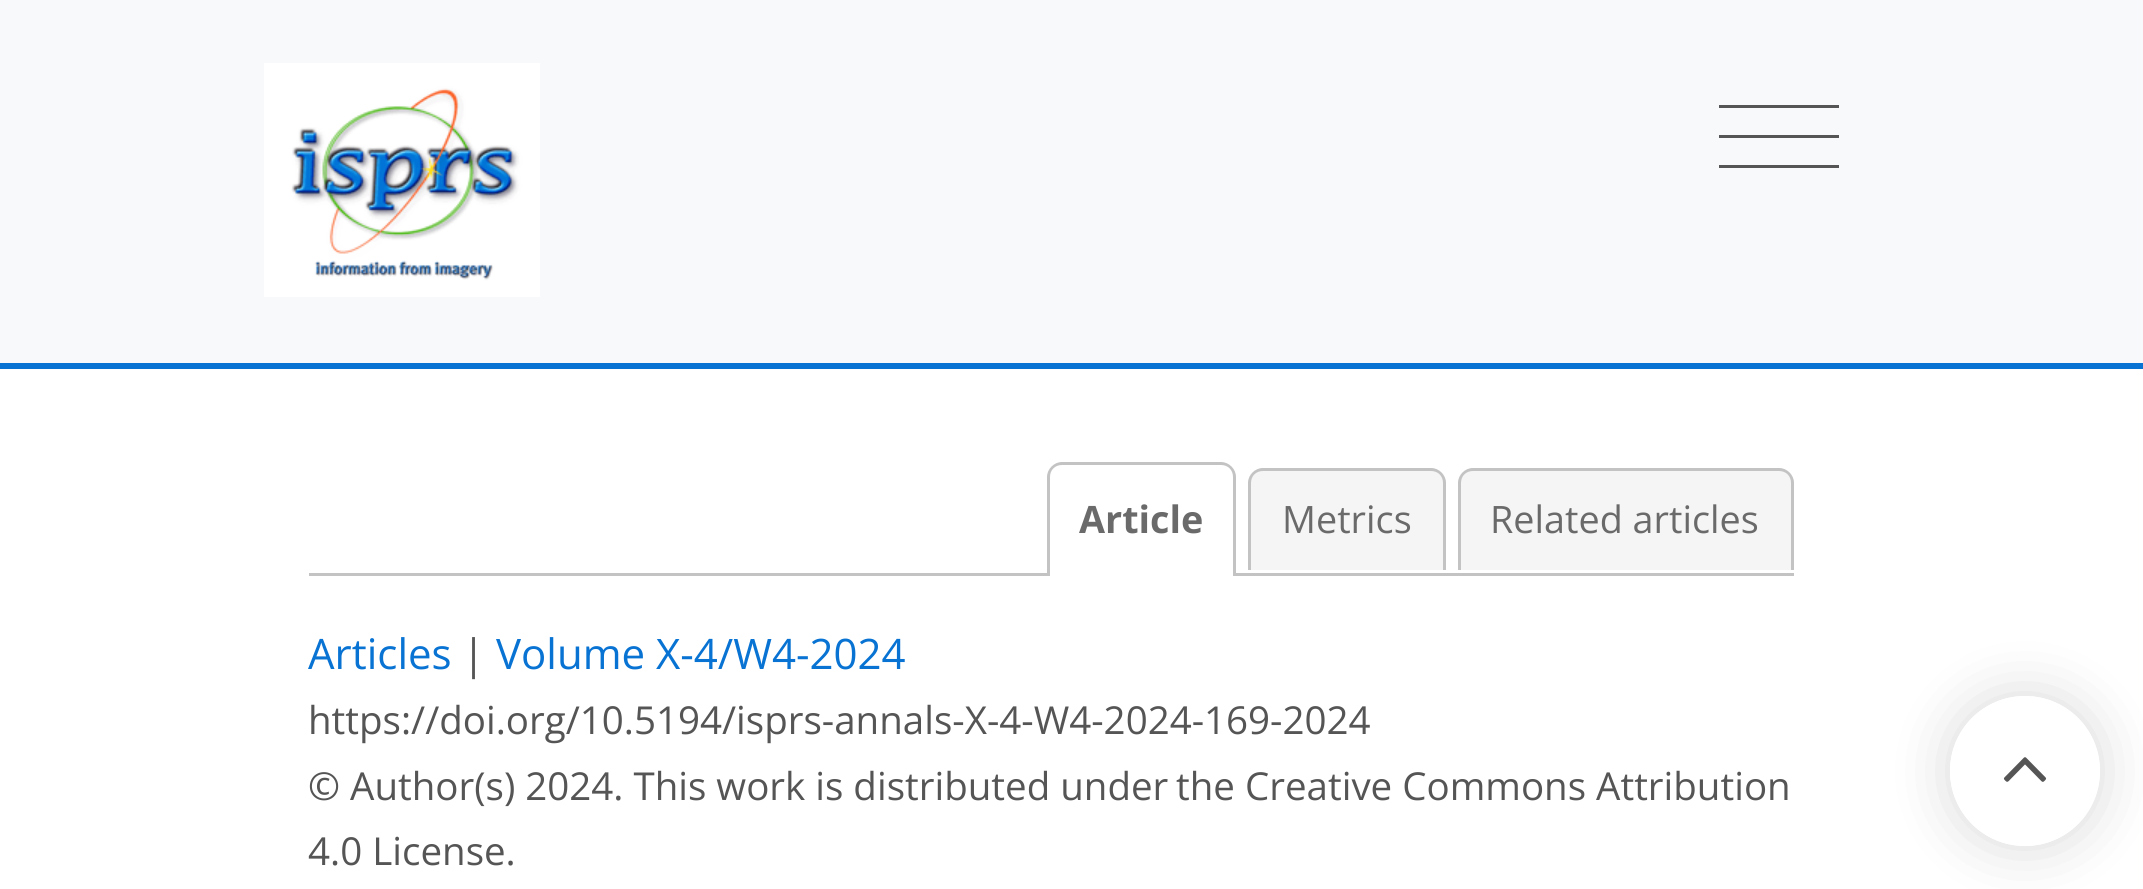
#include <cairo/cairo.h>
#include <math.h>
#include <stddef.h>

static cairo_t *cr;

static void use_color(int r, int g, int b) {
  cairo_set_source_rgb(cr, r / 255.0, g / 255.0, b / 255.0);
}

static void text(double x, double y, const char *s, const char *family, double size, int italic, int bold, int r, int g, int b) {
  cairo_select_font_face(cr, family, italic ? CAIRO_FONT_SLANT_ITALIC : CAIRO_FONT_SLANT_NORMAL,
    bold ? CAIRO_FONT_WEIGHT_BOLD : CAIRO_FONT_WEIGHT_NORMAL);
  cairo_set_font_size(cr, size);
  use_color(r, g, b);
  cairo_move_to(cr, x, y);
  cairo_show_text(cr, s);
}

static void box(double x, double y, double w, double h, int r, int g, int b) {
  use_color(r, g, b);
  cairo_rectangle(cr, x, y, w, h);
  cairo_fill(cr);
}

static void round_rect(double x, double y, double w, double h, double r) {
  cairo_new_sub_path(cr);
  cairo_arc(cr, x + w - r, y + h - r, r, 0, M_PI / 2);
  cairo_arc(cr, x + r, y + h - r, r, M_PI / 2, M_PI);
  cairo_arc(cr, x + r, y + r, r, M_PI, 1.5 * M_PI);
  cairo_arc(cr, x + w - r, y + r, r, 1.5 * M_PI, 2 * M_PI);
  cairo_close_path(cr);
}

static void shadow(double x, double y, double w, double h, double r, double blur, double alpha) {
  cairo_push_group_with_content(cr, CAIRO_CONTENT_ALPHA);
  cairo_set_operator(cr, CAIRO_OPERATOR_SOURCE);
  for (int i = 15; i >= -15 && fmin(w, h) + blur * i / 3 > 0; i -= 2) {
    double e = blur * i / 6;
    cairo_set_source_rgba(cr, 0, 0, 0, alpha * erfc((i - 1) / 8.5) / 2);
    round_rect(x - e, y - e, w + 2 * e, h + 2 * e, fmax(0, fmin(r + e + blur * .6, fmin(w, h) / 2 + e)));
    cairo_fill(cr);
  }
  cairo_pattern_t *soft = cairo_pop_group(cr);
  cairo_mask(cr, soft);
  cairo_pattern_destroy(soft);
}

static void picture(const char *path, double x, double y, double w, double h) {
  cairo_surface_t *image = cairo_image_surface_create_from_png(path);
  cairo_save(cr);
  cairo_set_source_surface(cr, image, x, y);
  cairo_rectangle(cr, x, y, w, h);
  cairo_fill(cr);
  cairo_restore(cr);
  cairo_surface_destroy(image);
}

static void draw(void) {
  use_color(255, 255, 255);
  cairo_paint(cr);
  box(0, 0, 2143, 363, 248, 249, 250);
  box(0, 363, 2143, 6, 8, 115, 211);
  picture("img_01.png", 264, 63, 276, 234);
  box(1719, 105, 120, 3, 85, 85, 85);
  box(1719, 135, 120, 3, 85, 85, 85);
  box(1719, 165, 120, 3, 85, 85, 85);
  box(309, 573, 1485, 3, 195, 195, 195);
  use_color(255, 255, 255);
  cairo_new_path(cr);
  cairo_move_to(cr, 1062, 462);
  cairo_line_to(cr, 1221, 462);
  cairo_curve_to(cr, 1229.5, 462, 1236, 468.5, 1236, 477);
  cairo_line_to(cr, 1236, 576);
  cairo_line_to(cr, 1047, 576);
  cairo_line_to(cr, 1047, 477);
  cairo_curve_to(cr, 1047, 468.5, 1053.5, 462, 1062, 462);
  cairo_close_path(cr);
  cairo_fill(cr);
  use_color(195, 195, 195);
  cairo_set_fill_rule(cr, CAIRO_FILL_RULE_EVEN_ODD);
  cairo_new_path(cr);
  cairo_move_to(cr, 1062, 462);
  cairo_line_to(cr, 1221, 462);
  cairo_curve_to(cr, 1229, 462, 1236, 469, 1236, 477);
  cairo_line_to(cr, 1236, 576);
  cairo_line_to(cr, 1047, 576);
  cairo_line_to(cr, 1047, 477);
  cairo_curve_to(cr, 1047, 469, 1054, 462, 1062, 462);
  cairo_close_path(cr);
  cairo_move_to(cr, 1062, 465);
  cairo_line_to(cr, 1221, 465);
  cairo_curve_to(cr, 1228, 465, 1233, 470, 1233, 477);
  cairo_line_to(cr, 1233, 576);
  cairo_line_to(cr, 1050, 576);
  cairo_line_to(cr, 1050, 477);
  cairo_curve_to(cr, 1050, 470, 1055, 465, 1062, 465);
  cairo_close_path(cr);
  cairo_fill(cr);
  use_color(245, 245, 245);
  cairo_new_path(cr);
  cairo_move_to(cr, 1263, 468);
  cairo_line_to(cr, 1431, 468);
  cairo_curve_to(cr, 1439.5, 468, 1446, 474.5, 1446, 483);
  cairo_line_to(cr, 1446, 570);
  cairo_line_to(cr, 1248, 570);
  cairo_line_to(cr, 1248, 483);
  cairo_curve_to(cr, 1248, 474.5, 1254.5, 468, 1263, 468);
  cairo_close_path(cr);
  cairo_fill(cr);
  use_color(195, 195, 195);
  cairo_new_path(cr);
  cairo_move_to(cr, 1263, 468);
  cairo_line_to(cr, 1431, 468);
  cairo_curve_to(cr, 1439, 468, 1446, 475, 1446, 483);
  cairo_line_to(cr, 1446, 570);
  cairo_line_to(cr, 1248, 570);
  cairo_line_to(cr, 1248, 483);
  cairo_curve_to(cr, 1248, 475, 1255, 468, 1263, 468);
  cairo_close_path(cr);
  cairo_move_to(cr, 1263, 471);
  cairo_line_to(cr, 1431, 471);
  cairo_curve_to(cr, 1438, 471, 1443, 476, 1443, 483);
  cairo_line_to(cr, 1443, 570);
  cairo_line_to(cr, 1251, 570);
  cairo_line_to(cr, 1251, 483);
  cairo_curve_to(cr, 1251, 476, 1256, 471, 1263, 471);
  cairo_close_path(cr);
  cairo_fill(cr);
  use_color(245, 245, 245);
  cairo_new_path(cr);
  cairo_move_to(cr, 1473, 468);
  cairo_line_to(cr, 1779, 468);
  cairo_curve_to(cr, 1787.5, 468, 1794, 474.5, 1794, 483);
  cairo_line_to(cr, 1794, 570);
  cairo_line_to(cr, 1458, 570);
  cairo_line_to(cr, 1458, 483);
  cairo_curve_to(cr, 1458, 474.5, 1464.5, 468, 1473, 468);
  cairo_close_path(cr);
  cairo_fill(cr);
  use_color(195, 195, 195);
  cairo_new_path(cr);
  cairo_move_to(cr, 1473, 468);
  cairo_line_to(cr, 1779, 468);
  cairo_curve_to(cr, 1787, 468, 1794, 475, 1794, 483);
  cairo_line_to(cr, 1794, 570);
  cairo_line_to(cr, 1458, 570);
  cairo_line_to(cr, 1458, 483);
  cairo_curve_to(cr, 1458, 475, 1465, 468, 1473, 468);
  cairo_close_path(cr);
  cairo_move_to(cr, 1473, 471);
  cairo_line_to(cr, 1779, 471);
  cairo_curve_to(cr, 1786, 471, 1791, 476, 1791, 483);
  cairo_line_to(cr, 1791, 570);
  cairo_line_to(cr, 1461, 570);
  cairo_line_to(cr, 1461, 483);
  cairo_curve_to(cr, 1461, 476, 1466, 471, 1473, 471);
  cairo_close_path(cr);
  cairo_fill(cr);
  cairo_save(cr);
  cairo_new_path(cr);
  cairo_move_to(cr, 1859, 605);
  cairo_line_to(cr, 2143, 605);
  cairo_line_to(cr, 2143, 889);
  cairo_line_to(cr, 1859, 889);
  cairo_close_path(cr);
  cairo_move_to(cr, 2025, 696);
  cairo_curve_to(cr, 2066.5, 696, 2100, 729.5, 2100, 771);
  cairo_curve_to(cr, 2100, 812.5, 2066.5, 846, 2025, 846);
  cairo_curve_to(cr, 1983.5, 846, 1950, 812.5, 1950, 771);
  cairo_curve_to(cr, 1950, 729.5, 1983.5, 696, 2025, 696);
  cairo_close_path(cr);
  cairo_clip(cr);
  use_color(0, 0, 0);
  shadow(1950, 696, 150, 150, 75, 30, 0.15);
  cairo_restore(cr);
  cairo_set_source_rgba(cr, 1, 1, 1, 0.7);
  cairo_arc(cr, 2025, 771, 75, 0, 2 * M_PI);
  cairo_fill(cr);
  picture("img_02.png", 2003, 757, 44, 25);
  text(1079, 533, "Article", "Open Sans", 37.75, 0, 1, 106, 106, 106);
  text(1282, 533, "Metrics", "Open Sans", 37.75, 0, 0, 106, 106, 106);
  text(1490, 533, "Related articles", "Open Sans", 37.75, 0, 0, 106, 106, 106);
  text(308, 669, "Articles", "Open Sans", 42, 0, 0, 8, 115, 211);
  text(462, 669, "|", "Open Sans", 42, 0, 0, 85, 85, 85);
  text(496, 669, "Volume X-4/W4-2024", "Open Sans", 42, 0, 0, 8, 115, 211);
  text(308, 734, "https://doi.org/10.5194/isprs-annals-X-4-W4-2024-169-2024", "Open Sans", 38.5, 0, 0, 85, 85, 85);
  text(308, 800, "© Author(s) 2024. This work is distributed under", "Open Sans", 38.5, 0, 0, 85, 85, 85);
  text(1176, 800, "the Creative Commons Attribution", "Open Sans", 38.5, 0, 0, 85, 85, 85);
  text(308, 865, "4.0 License.", "Open Sans", 38.5, 0, 0, 85, 85, 85);
}

int main(void) {
  cairo_surface_t *surface = cairo_image_surface_create(CAIRO_FORMAT_RGB24, 2143, 889);
  cr = cairo_create(surface);
  cairo_font_options_t *options = cairo_font_options_create();
  cairo_font_options_set_hint_metrics(options, CAIRO_HINT_METRICS_OFF);
  cairo_font_options_set_hint_style(options, CAIRO_HINT_STYLE_NONE);
  cairo_set_font_options(cr, options);
  cairo_set_miter_limit(cr, 4);
  draw();
  cairo_surface_write_to_png(surface, "out.png");
  cairo_font_options_destroy(options);
  cairo_destroy(cr);
  cairo_surface_destroy(surface);
  return 0;
}
